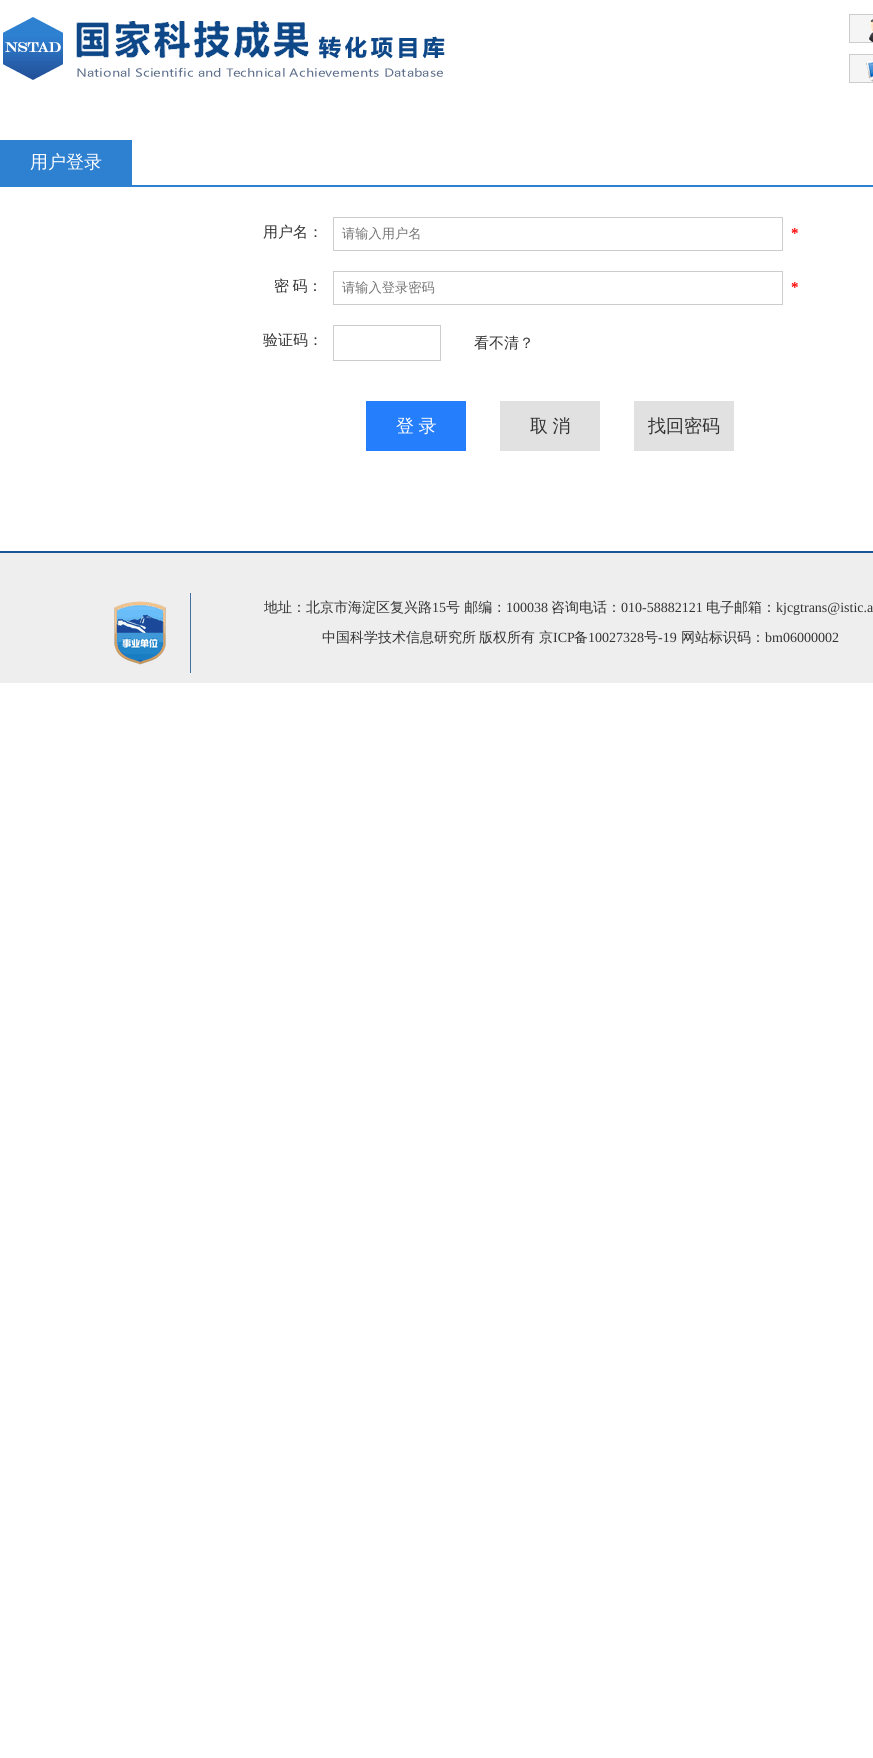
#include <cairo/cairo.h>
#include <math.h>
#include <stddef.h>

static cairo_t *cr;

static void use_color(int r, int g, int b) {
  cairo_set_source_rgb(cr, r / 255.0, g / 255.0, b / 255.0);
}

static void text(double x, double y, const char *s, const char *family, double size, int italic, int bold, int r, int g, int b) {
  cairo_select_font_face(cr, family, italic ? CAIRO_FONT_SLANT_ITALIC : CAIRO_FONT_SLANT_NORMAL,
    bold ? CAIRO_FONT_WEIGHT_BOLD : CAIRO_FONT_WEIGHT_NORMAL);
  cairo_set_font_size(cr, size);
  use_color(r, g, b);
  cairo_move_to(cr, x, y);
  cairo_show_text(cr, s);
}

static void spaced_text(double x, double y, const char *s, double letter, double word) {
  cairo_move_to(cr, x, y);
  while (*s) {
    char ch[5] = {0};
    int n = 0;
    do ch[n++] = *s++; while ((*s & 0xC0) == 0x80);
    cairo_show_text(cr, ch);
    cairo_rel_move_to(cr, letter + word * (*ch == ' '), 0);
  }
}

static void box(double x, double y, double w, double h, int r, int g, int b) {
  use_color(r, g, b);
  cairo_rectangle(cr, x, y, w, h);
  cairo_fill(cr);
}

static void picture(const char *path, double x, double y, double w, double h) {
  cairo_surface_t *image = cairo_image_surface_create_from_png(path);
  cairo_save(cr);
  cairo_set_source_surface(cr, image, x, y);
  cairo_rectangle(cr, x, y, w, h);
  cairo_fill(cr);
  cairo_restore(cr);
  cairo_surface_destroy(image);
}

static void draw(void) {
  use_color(255, 255, 255);
  cairo_paint(cr);
  picture("img_01.png", 3, 17, 442, 63);
  box(850, 15, 23, 27, 245, 245, 245);
  picture("img_02.png", 869, 19, 4, 23);
  cairo_rectangle(cr, 849.5, 14.5, 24, 28);
  use_color(204, 204, 204);
  cairo_set_line_width(cr, 1);
  cairo_stroke(cr);
  box(850, 55, 23, 27, 245, 245, 245);
  picture("img_03.png", 866, 61, 7, 21);
  cairo_rectangle(cr, 849.5, 54.5, 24, 28);
  use_color(204, 204, 204);
  cairo_stroke(cr);
  box(0, 185, 873, 2, 46, 128, 209);
  box(0, 140, 132, 45, 46, 128, 209);
  cairo_rectangle(cr, 333.5, 217.5, 449, 33);
  use_color(204, 204, 204);
  cairo_stroke(cr);
  cairo_rectangle(cr, 333.5, 271.5, 449, 33);
  cairo_stroke(cr);
  cairo_rectangle(cr, 333.5, 325.5, 107, 35);
  cairo_stroke(cr);
  box(366, 401, 100, 50, 37, 126, 252);
  box(500, 401, 100, 50, 225, 225, 225);
  box(634, 401, 100, 50, 225, 225, 225);
  box(0, 553, 873, 130, 238, 238, 238);
  box(0, 551, 873, 2, 27, 84, 155);
  box(190, 593, 1, 80, 69, 111, 160);
  picture("img_04.png", 114, 601, 52, 64);
  text(30, 168, "用户登录", "WenQuanYi Zen Hei Medium", 18, 0, 0, 255, 255, 255);
  text(263, 237, "用户名：", "WenQuanYi Zen Hei Medium", 15, 0, 0, 51, 51, 51);
  text(342, 238, "请输入用户名", "WenQuanYi Zen Hei Medium", 13.25, 0, 0, 117, 117, 117);
  text(791, 238, "*", "Liberation Serif", 15, 0, 1, 255, 0, 0);
  cairo_select_font_face(cr, "WenQuanYi Zen Hei Medium", CAIRO_FONT_SLANT_NORMAL, CAIRO_FONT_WEIGHT_NORMAL);
  use_color(51, 51, 51);
  spaced_text(274, 291, "密 码：", 0, -1);
  text(342, 292, "请输入登录密码", "WenQuanYi Zen Hei Medium", 13.25, 0, 0, 117, 117, 117);
  text(791, 292, "*", "Liberation Serif", 15, 0, 1, 255, 0, 0);
  text(263, 345, "验证码：", "WenQuanYi Zen Hei Medium", 15, 0, 0, 51, 51, 51);
  text(474, 348, "看不清？", "WenQuanYi Zen Hei Medium", 15, 0, 0, 51, 51, 51);
  cairo_set_font_size(cr, 18);
  use_color(255, 255, 255);
  spaced_text(396, 432, "登 录", 0, -1);
  use_color(51, 51, 51);
  spaced_text(530, 432, "取 消", 0, -1);
  text(648, 432, "找回密码", "WenQuanYi Zen Hei Medium", 18, 0, 0, 51, 51, 51);
  text(264, 612, "地址：北京市海淀区复兴路", "WenQuanYi Zen Hei Medium", 14, 0, 0, 51, 51, 51);
  text(432, 612, "15", "Liberation Serif", 14, 0, 0, 51, 51, 51);
  text(446, 612, "号 邮编：", "WenQuanYi Zen Hei Medium", 14, 0, 0, 51, 51, 51);
  text(506, 612, "100038", "Liberation Serif", 14, 0, 0, 51, 51, 51);
  text(551, 612, "咨询电话：", "WenQuanYi Zen Hei Medium", 14, 0, 0, 51, 51, 51);
  text(621, 612, "010-58882121", "Liberation Serif", 14, 0, 0, 51, 51, 51);
  text(706, 612, "电子邮箱：", "WenQuanYi Zen Hei Medium", 14, 0, 0, 51, 51, 51);
  text(776, 612, "kjcgtrans@istic.a", "Liberation Serif", 14, 0, 0, 51, 51, 51);
  text(322, 642, "中国科学技术信息研究所", "WenQuanYi Zen Hei Medium", 14, 0, 0, 51, 51, 51);
  text(479, 642, "版权所有", "WenQuanYi Zen Hei Medium", 14, 0, 0, 51, 51, 51);
  text(539, 642, "京", "WenQuanYi Zen Hei Medium", 14, 0, 0, 51, 51, 51);
  text(553, 642, "ICP", "Liberation Serif", 14, 0, 0, 51, 51, 51);
  text(574, 642, "备", "WenQuanYi Zen Hei Medium", 14, 0, 0, 51, 51, 51);
  text(588, 642, "10027328", "Liberation Serif", 14, 0, 0, 51, 51, 51);
  text(644, 642, "号", "WenQuanYi Zen Hei Medium", 14, 0, 0, 51, 51, 51);
  text(658, 642, "-19", "Liberation Serif", 14, 0, 0, 51, 51, 51);
  text(681, 642, "网站标识码：", "WenQuanYi Zen Hei Medium", 14, 0, 0, 51, 51, 51);
  text(765, 642, "bm06000002", "Liberation Serif", 14, 0, 0, 51, 51, 51);
}

int main(void) {
  cairo_surface_t *surface = cairo_image_surface_create(CAIRO_FORMAT_RGB24, 873, 1758);
  cr = cairo_create(surface);
  cairo_font_options_t *options = cairo_font_options_create();
  cairo_font_options_set_hint_metrics(options, CAIRO_HINT_METRICS_OFF);
  cairo_font_options_set_hint_style(options, CAIRO_HINT_STYLE_NONE);
  cairo_set_font_options(cr, options);
  cairo_set_miter_limit(cr, 4);
  draw();
  cairo_surface_write_to_png(surface, "out.png");
  cairo_font_options_destroy(options);
  cairo_destroy(cr);
  cairo_surface_destroy(surface);
  return 0;
}
